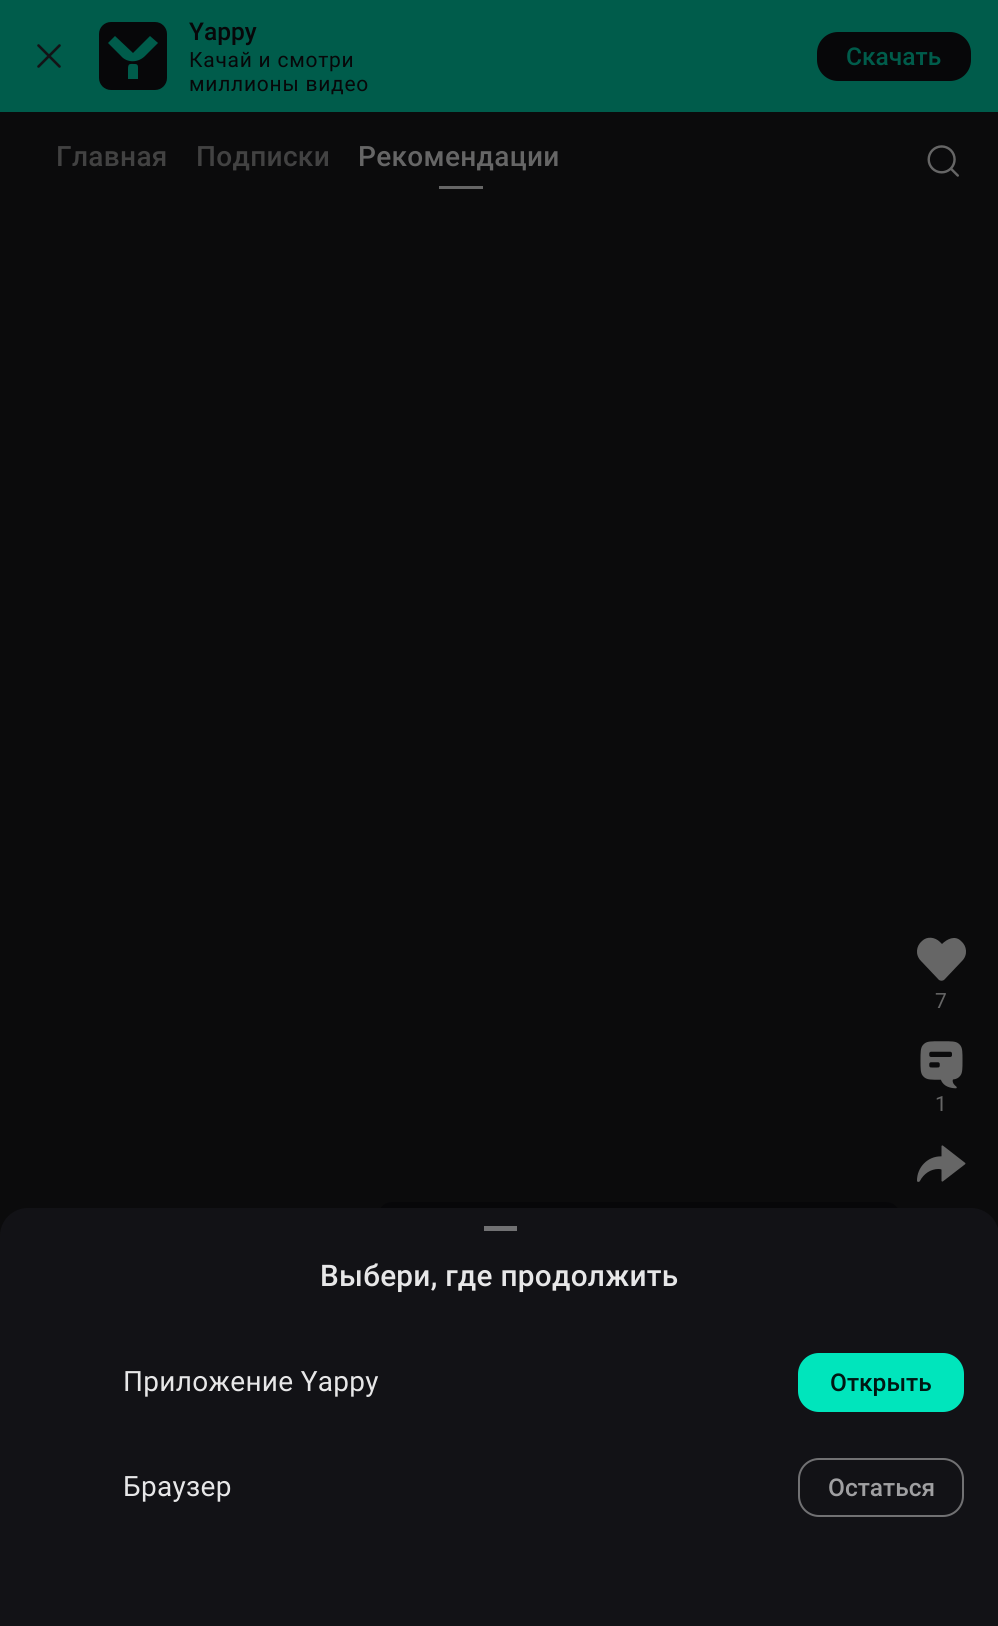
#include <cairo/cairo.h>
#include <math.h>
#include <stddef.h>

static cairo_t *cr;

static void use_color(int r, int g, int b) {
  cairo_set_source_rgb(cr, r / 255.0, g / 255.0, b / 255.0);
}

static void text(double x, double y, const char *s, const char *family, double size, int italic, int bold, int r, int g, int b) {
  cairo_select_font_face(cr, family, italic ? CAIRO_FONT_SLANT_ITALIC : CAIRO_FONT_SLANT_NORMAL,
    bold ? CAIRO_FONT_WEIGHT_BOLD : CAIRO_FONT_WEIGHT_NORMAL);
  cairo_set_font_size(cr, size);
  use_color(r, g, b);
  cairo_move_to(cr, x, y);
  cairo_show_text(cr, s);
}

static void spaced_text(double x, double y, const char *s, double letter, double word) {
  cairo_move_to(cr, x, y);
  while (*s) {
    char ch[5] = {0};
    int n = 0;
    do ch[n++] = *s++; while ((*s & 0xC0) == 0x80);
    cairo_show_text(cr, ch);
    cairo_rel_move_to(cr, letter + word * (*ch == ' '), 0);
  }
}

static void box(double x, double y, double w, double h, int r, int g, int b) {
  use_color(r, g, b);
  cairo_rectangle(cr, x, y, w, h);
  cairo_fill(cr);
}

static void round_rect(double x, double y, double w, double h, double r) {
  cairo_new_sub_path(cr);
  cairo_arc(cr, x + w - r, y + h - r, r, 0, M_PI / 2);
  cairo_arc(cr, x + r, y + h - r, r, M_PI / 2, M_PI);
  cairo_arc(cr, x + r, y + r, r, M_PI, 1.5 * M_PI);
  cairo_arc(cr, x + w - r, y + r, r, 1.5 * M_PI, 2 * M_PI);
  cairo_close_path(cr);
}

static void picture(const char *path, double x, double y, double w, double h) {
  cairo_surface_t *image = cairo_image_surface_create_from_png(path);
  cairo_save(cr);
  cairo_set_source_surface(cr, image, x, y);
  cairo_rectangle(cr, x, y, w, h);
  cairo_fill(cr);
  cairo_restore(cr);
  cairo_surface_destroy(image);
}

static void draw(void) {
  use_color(11, 11, 12);
  cairo_paint(cr);
  box(0, 0, 998, 112, 0, 92, 75);
  picture("img_01.png", 37, 44, 24, 24);
  use_color(7, 7, 9);
  round_rect(99, 22, 68, 68, 12);
  cairo_fill(cr);
  use_color(0, 92, 75);
  cairo_new_path(cr);
  cairo_move_to(cr, 135, 64);
  cairo_curve_to(cr, 130, 64, 128, 63, 128, 69);
  cairo_line_to(cr, 128, 79);
  cairo_line_to(cr, 138, 79);
  cairo_line_to(cr, 138, 67);
  cairo_curve_to(cr, 138, 65, 137, 64, 135, 64);
  cairo_close_path(cr);
  cairo_move_to(cr, 145, 56);
  cairo_line_to(cr, 158, 43);
  cairo_line_to(cr, 150, 36);
  cairo_line_to(cr, 133, 53);
  cairo_line_to(cr, 115, 36);
  cairo_line_to(cr, 108, 43);
  cairo_line_to(cr, 121, 56);
  cairo_curve_to(cr, 127, 63, 138, 63, 145, 56);
  cairo_close_path(cr);
  cairo_fill(cr);
  use_color(7, 7, 9);
  round_rect(817, 32, 154, 49, 21);
  cairo_fill(cr);
  box(439, 186, 44, 3, 102, 102, 102);
  picture("img_02.png", 927, 145, 32, 32);
  cairo_new_path(cr);
  cairo_move_to(cr, 961, 941);
  cairo_curve_to(cr, 955, 935, 947, 939, 942, 944);
  cairo_line_to(cr, 940, 942);
  cairo_curve_to(cr, 935, 937, 927, 936, 922, 941);
  cairo_curve_to(cr, 916, 946, 915, 955, 921, 961);
  cairo_line_to(cr, 939, 980);
  cairo_curve_to(cr, 941, 981, 942, 981, 944, 980);
  cairo_line_to(cr, 962, 961);
  cairo_curve_to(cr, 968, 955, 967, 946, 961, 941);
  cairo_close_path(cr);
  cairo_fill(cr);
  picture("img_03.png", 920, 1041, 43, 48);
  picture("img_04.png", 917, 1145, 49, 37);
  use_color(7, 7, 9);
  round_rect(378, 1202, 522, 91, 14);
  cairo_fill(cr);
  use_color(18, 18, 22);
  cairo_new_path(cr);
  cairo_move_to(cr, 28, 1208);
  cairo_line_to(cr, 971, 1208);
  cairo_curve_to(cr, 986.5, 1208, 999, 1220.5, 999, 1236);
  cairo_line_to(cr, 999, 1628);
  cairo_line_to(cr, 0, 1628);
  cairo_line_to(cr, 0, 1236);
  cairo_curve_to(cr, 0, 1220.5, 12.5, 1208, 28, 1208);
  cairo_close_path(cr);
  cairo_fill(cr);
  box(484, 1226, 33, 5, 113, 113, 115);
  use_color(0, 229, 188);
  round_rect(798, 1353, 166, 59, 21);
  cairo_fill(cr);
  round_rect(799, 1459, 164, 57, 20);
  use_color(113, 113, 115);
  cairo_stroke(cr);
  text(189, 40, "Yappy", "Roboto Medium", 24.5, 0, 0, 7, 7, 9);
  cairo_select_font_face(cr, "Roboto", CAIRO_FONT_SLANT_NORMAL, CAIRO_FONT_WEIGHT_NORMAL);
  cairo_set_font_size(cr, 21);
  spaced_text(189, 67, "Качай и смотри", 0.75, 0);
  spaced_text(189, 91, "миллионы видео", 0.75, 0);
  text(846, 65, "Скачать", "Roboto Medium", 24.5, 0, 0, 0, 92, 75);
  cairo_set_font_size(cr, 28);
  use_color(66, 66, 66);
  spaced_text(56, 166, "Главная", 0.3, 0);
  spaced_text(196, 166, "Подписки", 0.3, 0);
  use_color(102, 102, 102);
  spaced_text(358, 166, "Рекомендации", 0.3, 0);
  cairo_select_font_face(cr, "Roboto", CAIRO_FONT_SLANT_NORMAL, CAIRO_FONT_WEIGHT_NORMAL);
  cairo_set_font_size(cr, 21);
  spaced_text(935, 1008, "7", 0.75, 0);
  spaced_text(935, 1111, "1", 0.75, 0);
  cairo_select_font_face(cr, "Roboto Medium", CAIRO_FONT_SLANT_NORMAL, CAIRO_FONT_WEIGHT_NORMAL);
  cairo_set_font_size(cr, 29.75);
  use_color(231, 231, 232);
  spaced_text(320, 1286, "Выбери, где продолжить", 0.25, 0);
  cairo_select_font_face(cr, "Roboto", CAIRO_FONT_SLANT_NORMAL, CAIRO_FONT_WEIGHT_NORMAL);
  cairo_set_font_size(cr, 28);
  spaced_text(123, 1391, "Приложение Yappy", 0.3, 0);
  text(830, 1391, "Открыть", "Roboto Medium", 24.5, 0, 0, 0, 23, 19);
  cairo_select_font_face(cr, "Roboto", CAIRO_FONT_SLANT_NORMAL, CAIRO_FONT_WEIGHT_NORMAL);
  cairo_set_font_size(cr, 28);
  use_color(231, 231, 232);
  spaced_text(123, 1496, "Браузер", 0.3, 0);
  text(828, 1496, "Остаться", "Roboto Medium", 24.5, 0, 0, 160, 160, 162);
}

int main(void) {
  cairo_surface_t *surface = cairo_image_surface_create(CAIRO_FORMAT_RGB24, 998, 1626);
  cr = cairo_create(surface);
  cairo_font_options_t *options = cairo_font_options_create();
  cairo_font_options_set_hint_metrics(options, CAIRO_HINT_METRICS_OFF);
  cairo_font_options_set_hint_style(options, CAIRO_HINT_STYLE_NONE);
  cairo_set_font_options(cr, options);
  cairo_set_miter_limit(cr, 4);
  draw();
  cairo_surface_write_to_png(surface, "out.png");
  cairo_font_options_destroy(options);
  cairo_destroy(cr);
  cairo_surface_destroy(surface);
  return 0;
}
